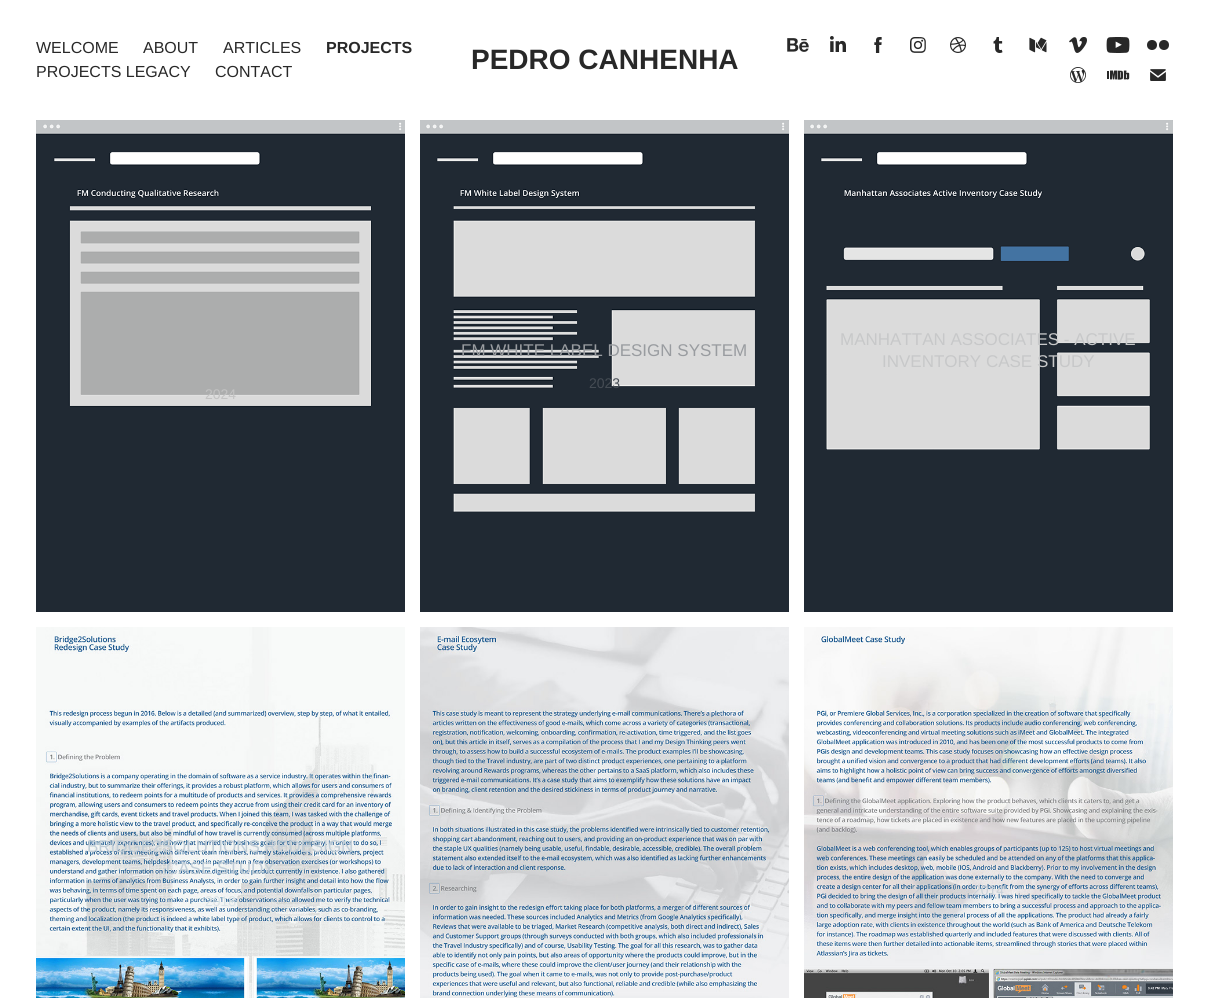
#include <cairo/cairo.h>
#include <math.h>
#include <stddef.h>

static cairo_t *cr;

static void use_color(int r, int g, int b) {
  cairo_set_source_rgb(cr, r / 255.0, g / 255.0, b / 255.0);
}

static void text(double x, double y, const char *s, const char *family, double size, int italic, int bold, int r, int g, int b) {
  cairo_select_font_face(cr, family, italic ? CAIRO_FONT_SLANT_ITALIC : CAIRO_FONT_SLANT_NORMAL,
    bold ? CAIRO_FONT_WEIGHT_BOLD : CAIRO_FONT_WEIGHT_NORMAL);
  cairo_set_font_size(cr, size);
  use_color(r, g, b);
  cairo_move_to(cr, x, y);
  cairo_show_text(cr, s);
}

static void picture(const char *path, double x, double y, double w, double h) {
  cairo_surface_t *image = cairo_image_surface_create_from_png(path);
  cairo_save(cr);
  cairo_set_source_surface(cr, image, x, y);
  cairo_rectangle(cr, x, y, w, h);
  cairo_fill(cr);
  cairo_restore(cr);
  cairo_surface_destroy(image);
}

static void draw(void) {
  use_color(255, 255, 255);
  cairo_paint(cr);
  picture("img_01.png", 787, 38, 22, 14);
  picture("img_02.png", 830, 36, 16, 16);
  picture("img_03.png", 874, 37, 8, 16);
  picture("img_04.png", 910, 37, 16, 16);
  picture("img_05.png", 950, 37, 16, 16);
  picture("img_06.png", 993, 37, 10, 16);
  picture("img_07.png", 1029, 37, 18, 16);
  picture("img_08.png", 1069, 37, 18, 16);
  picture("img_09.png", 1106, 37, 24, 16);
  use_color(40, 40, 40);
  cairo_arc(cr, 1152, 45, 5, 0, 2 * M_PI);
  cairo_fill(cr);
  cairo_arc(cr, 1164, 45, 5, 0, 2 * M_PI);
  cairo_fill(cr);
  picture("img_10.png", 1070, 67, 16, 16);
  picture("img_11.png", 1107, 70, 23, 10);
  picture("img_12.png", 1150, 69, 16, 12);
  picture("img_13.png", 420, 120, 369, 492);
  picture("img_14.png", 804, 120, 369, 492);
  picture("img_15.png", 36, 120, 369, 492);
  picture("img_16.png", 36, 627, 369, 371);
  picture("img_17.png", 420, 627, 369, 371);
  picture("img_18.png", 804, 627, 369, 371);
  text(36, 53, "WELCOME", "Liberation Sans", 16, 0, 0, 40, 40, 40);
  text(143, 53, "ABOUT", "Liberation Sans", 16, 0, 0, 40, 40, 40);
  text(223, 53, "ARTICLES", "Liberation Sans", 16, 0, 0, 40, 40, 40);
  text(326, 53, "PROJECTS", "Liberation Sans", 16, 0, 1, 40, 40, 40);
  text(36, 77, "PROJECTS LEGACY", "Liberation Sans", 16, 0, 0, 40, 40, 40);
  text(215, 77, "CONTACT", "Liberation Sans", 16, 0, 0, 40, 40, 40);
  text(471, 69, "PEDRO CANHENHA", "Liberation Sans", 28, 0, 1, 40, 40, 40);
  text(461, 356, "FM WHITE LABEL DESIGN SYSTEM", "Liberation Sans", 17, 0, 0, 153, 156, 160);
  text(589, 388, "2023", "Liberation Sans", 14, 0, 0, 69, 76, 84);
  text(840, 345, "MANHATTAN ASSOCIATES - ACTIVE", "Liberation Sans", 17, 0, 0, 199, 200, 201);
  text(882, 367, "INVENTORY CASE STUDY", "Liberation Sans", 17, 0, 0, 199, 200, 201);
  text(205, 399, "2024", "Liberation Sans", 14, 0, 0, 194, 194, 194);
  text(87, 852, "BRIDGE2SOLUTIONS REDESIGN", "Liberation Sans", 17, 0, 0, 192, 205, 215);
  text(166, 874, "CASE STUDY", "Liberation Sans", 17, 0, 0, 192, 205, 215);
  text(205, 906, "2018", "Liberation Sans", 14, 0, 0, 218, 227, 231);
  text(973, 895, "2014", "Liberation Sans", 14, 0, 0, 199, 208, 217);
}

int main(void) {
  cairo_surface_t *surface = cairo_image_surface_create(CAIRO_FORMAT_RGB24, 1209, 998);
  cr = cairo_create(surface);
  cairo_font_options_t *options = cairo_font_options_create();
  cairo_font_options_set_hint_metrics(options, CAIRO_HINT_METRICS_OFF);
  cairo_font_options_set_hint_style(options, CAIRO_HINT_STYLE_NONE);
  cairo_set_font_options(cr, options);
  cairo_set_miter_limit(cr, 4);
  draw();
  cairo_surface_write_to_png(surface, "out.png");
  cairo_font_options_destroy(options);
  cairo_destroy(cr);
  cairo_surface_destroy(surface);
  return 0;
}
